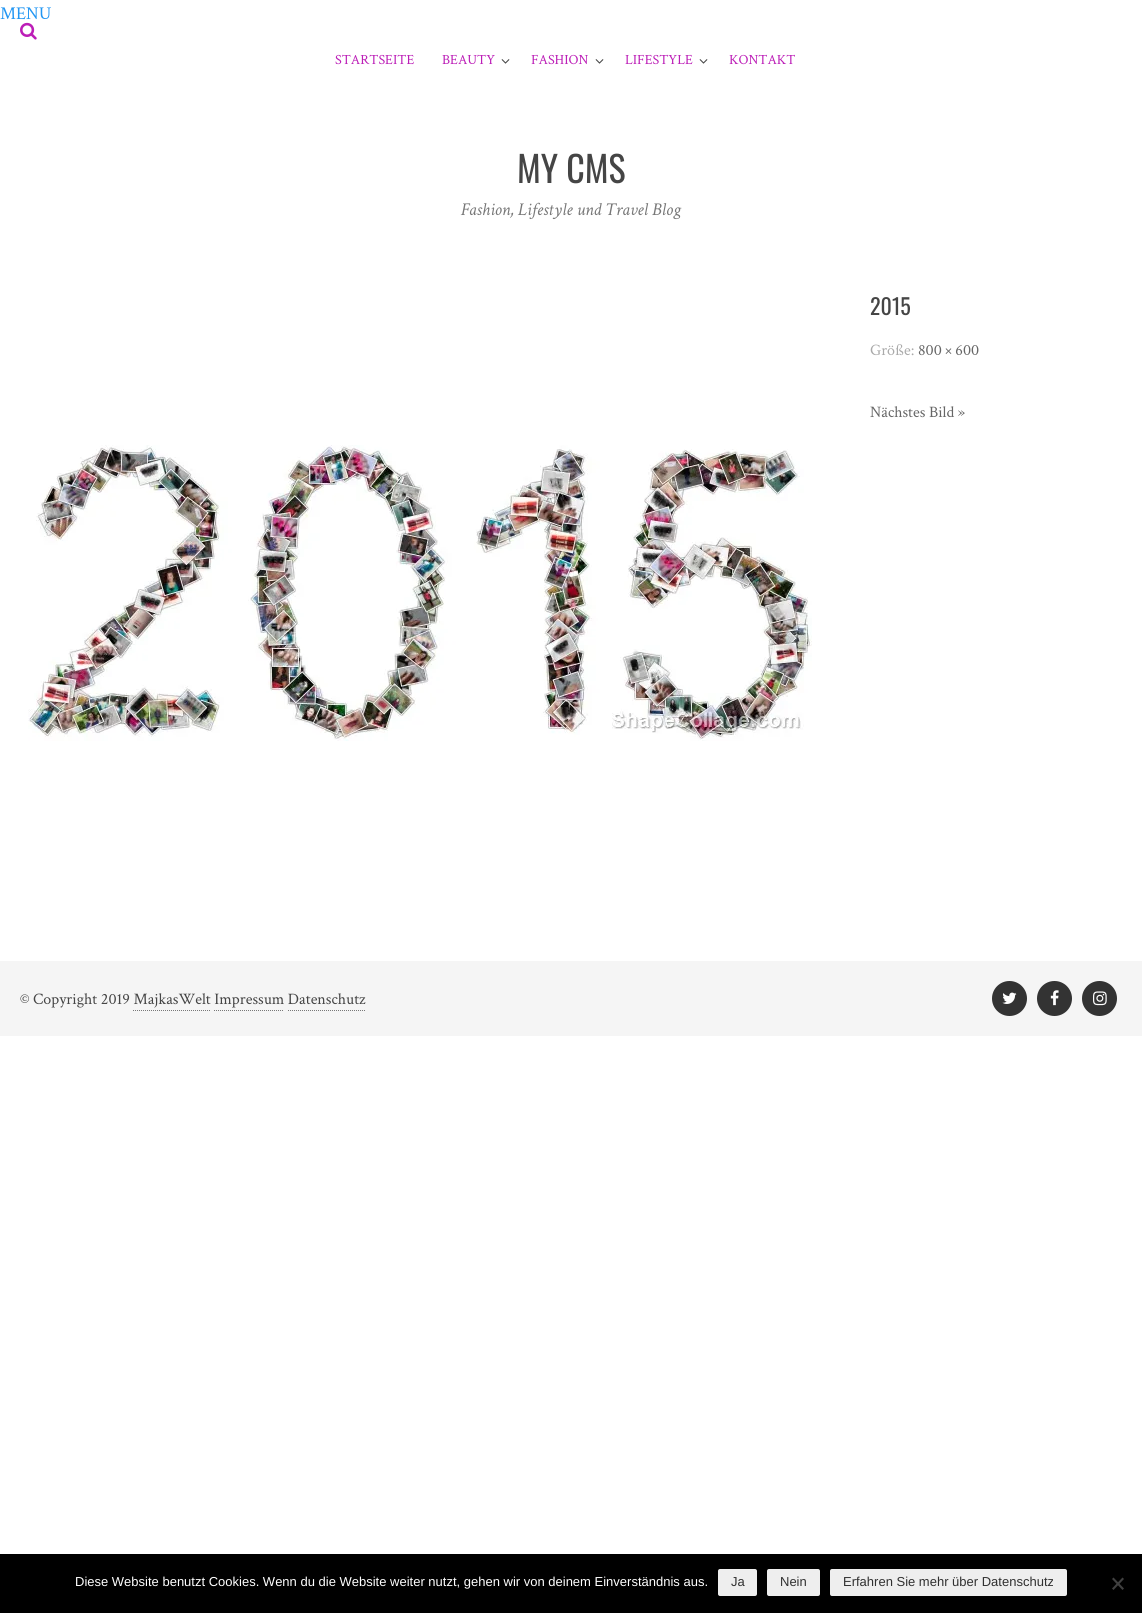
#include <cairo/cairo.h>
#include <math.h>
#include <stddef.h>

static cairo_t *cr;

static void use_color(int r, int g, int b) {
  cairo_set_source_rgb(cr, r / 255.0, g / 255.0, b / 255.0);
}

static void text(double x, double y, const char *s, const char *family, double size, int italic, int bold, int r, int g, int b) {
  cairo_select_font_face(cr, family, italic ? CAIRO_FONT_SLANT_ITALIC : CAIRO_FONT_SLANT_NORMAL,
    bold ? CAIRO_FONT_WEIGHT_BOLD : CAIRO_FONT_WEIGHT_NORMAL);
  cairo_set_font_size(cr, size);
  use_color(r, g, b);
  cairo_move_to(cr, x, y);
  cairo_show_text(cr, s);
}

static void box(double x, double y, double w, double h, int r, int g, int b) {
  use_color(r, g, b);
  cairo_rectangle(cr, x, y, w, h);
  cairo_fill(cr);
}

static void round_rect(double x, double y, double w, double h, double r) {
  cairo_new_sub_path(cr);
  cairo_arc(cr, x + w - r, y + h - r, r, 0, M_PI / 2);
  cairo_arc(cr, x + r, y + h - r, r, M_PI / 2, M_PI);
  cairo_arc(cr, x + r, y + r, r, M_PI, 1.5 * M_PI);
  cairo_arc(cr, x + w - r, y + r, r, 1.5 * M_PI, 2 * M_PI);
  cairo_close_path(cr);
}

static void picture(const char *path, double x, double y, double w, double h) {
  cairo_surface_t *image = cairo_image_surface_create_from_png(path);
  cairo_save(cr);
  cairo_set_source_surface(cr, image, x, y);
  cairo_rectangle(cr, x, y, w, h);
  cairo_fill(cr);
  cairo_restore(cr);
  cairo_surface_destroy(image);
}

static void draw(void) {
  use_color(255, 255, 255);
  cairo_paint(cr);
  picture("img_01.png", 20, 22, 17, 18);
  picture("img_02.png", 501, 59, 9, 5);
  picture("img_02.png", 595, 59, 9, 5);
  picture("img_02.png", 699, 59, 9, 5);
  picture("img_03.png", 28, 445, 784, 296);
  box(0, 961, 1142, 75, 245, 245, 245);
  cairo_new_path(cr);
  cairo_move_to(cr, 133, 1010.5);
  cairo_line_to(cr, 211, 1010.5);
  use_color(119, 119, 119);
  cairo_set_line_width(cr, 1);
  cairo_set_dash(cr, (double[]){1, 1}, 2, 0);
  cairo_stroke(cr);
  cairo_new_path(cr);
  cairo_move_to(cr, 214, 1010.5);
  cairo_line_to(cr, 284, 1010.5);
  cairo_stroke(cr);
  cairo_new_path(cr);
  cairo_move_to(cr, 288, 1010.5);
  cairo_line_to(cr, 366, 1010.5);
  cairo_stroke(cr);
  use_color(51, 51, 51);
  cairo_arc(cr, 1009.5, 998.5, 17.5, 0, 2 * M_PI);
  cairo_fill(cr);
  picture("img_04.png", 1002, 992, 15, 12);
  cairo_arc(cr, 1054.5, 998.5, 17.5, 0, 2 * M_PI);
  cairo_fill(cr);
  picture("img_05.png", 1050, 990, 9, 16);
  cairo_arc(cr, 1099.5, 998.5, 17.5, 0, 2 * M_PI);
  cairo_fill(cr);
  picture("img_06.png", 1093, 991, 14, 15);
  box(0, 1554, 1142, 59, 0, 0, 0);
  use_color(238, 238, 238);
  round_rect(718, 1569, 39, 27, 2);
  cairo_fill(cr);
  round_rect(767, 1569, 53, 27, 2);
  cairo_fill(cr);
  round_rect(830, 1569, 237, 27, 2);
  cairo_fill(cr);
  use_color(64, 64, 64);
  cairo_new_path(cr);
  cairo_move_to(cr, 1122.5, 1577.5);
  cairo_line_to(cr, 1124, 1579);
  cairo_line_to(cr, 1113.5, 1590);
  cairo_line_to(cr, 1112, 1588.5);
  cairo_close_path(cr);
  cairo_fill(cr);
  cairo_new_path(cr);
  cairo_move_to(cr, 1112, 1579);
  cairo_line_to(cr, 1113.5, 1577.5);
  cairo_line_to(cr, 1124, 1588.5);
  cairo_line_to(cr, 1122.5, 1590);
  cairo_close_path(cr);
  cairo_fill(cr);
  text(0, 19, "MENU", "Crimson Text", 18, 0, 0, 33, 150, 243);
  text(335, 64, "STARTSEITE", "Crimson Text", 14, 0, 0, 188, 30, 183);
  text(442, 64, "BEAUTY", "Crimson Text", 14, 0, 0, 188, 30, 183);
  text(531, 64, "FASHION", "Crimson Text", 14, 0, 0, 188, 30, 183);
  text(625, 64, "LIFESTYLE", "Crimson Text", 14, 0, 0, 188, 30, 183);
  text(729, 64, "KONTAKT", "Crimson Text", 14, 0, 0, 188, 30, 183);
  text(517, 183, "MY CMS", "Oswald", 36, 0, 0, 69, 69, 69);
  text(461, 215, "Fashion, Lifestyle und Travel Blog", "Crimson Text", 18, 1, 0, 119, 119, 119);
  text(870, 315, "2015", "Oswald", 22, 0, 0, 69, 69, 69);
  text(870, 355, "Größe:", "Crimson Text", 16, 0, 0, 170, 170, 170);
  text(918, 355, "800 × 600", "Crimson Text", 16, 0, 0, 102, 102, 102);
  text(870, 417, "Nächstes Bild »", "Crimson Text", 16, 0, 0, 102, 102, 102);
  text(20, 1004, "© Copyright 2019 MajkasWelt Impressum Datenschutz", "Crimson Text", 16, 0, 0, 69, 69, 69);
  text(75, 1586, "Diese Website benutzt Cookies. Wenn du die Website weiter nutzt, gehen wir von deinem Einverständnis aus.", "Liberation Sans", 13, 0, 0, 255, 255, 255);
  text(731, 1586, "Ja", "Liberation Sans", 13, 0, 0, 48, 48, 48);
  text(780, 1586, "Nein", "Liberation Sans", 13, 0, 0, 48, 48, 48);
  text(843, 1586, "Erfahren Sie mehr über Datenschutz", "Liberation Sans", 13, 0, 0, 48, 48, 48);
}

int main(void) {
  cairo_surface_t *surface = cairo_image_surface_create(CAIRO_FORMAT_RGB24, 1142, 1613);
  cr = cairo_create(surface);
  cairo_font_options_t *options = cairo_font_options_create();
  cairo_font_options_set_hint_metrics(options, CAIRO_HINT_METRICS_OFF);
  cairo_font_options_set_hint_style(options, CAIRO_HINT_STYLE_NONE);
  cairo_set_font_options(cr, options);
  cairo_set_miter_limit(cr, 4);
  draw();
  cairo_surface_write_to_png(surface, "out.png");
  cairo_font_options_destroy(options);
  cairo_destroy(cr);
  cairo_surface_destroy(surface);
  return 0;
}
